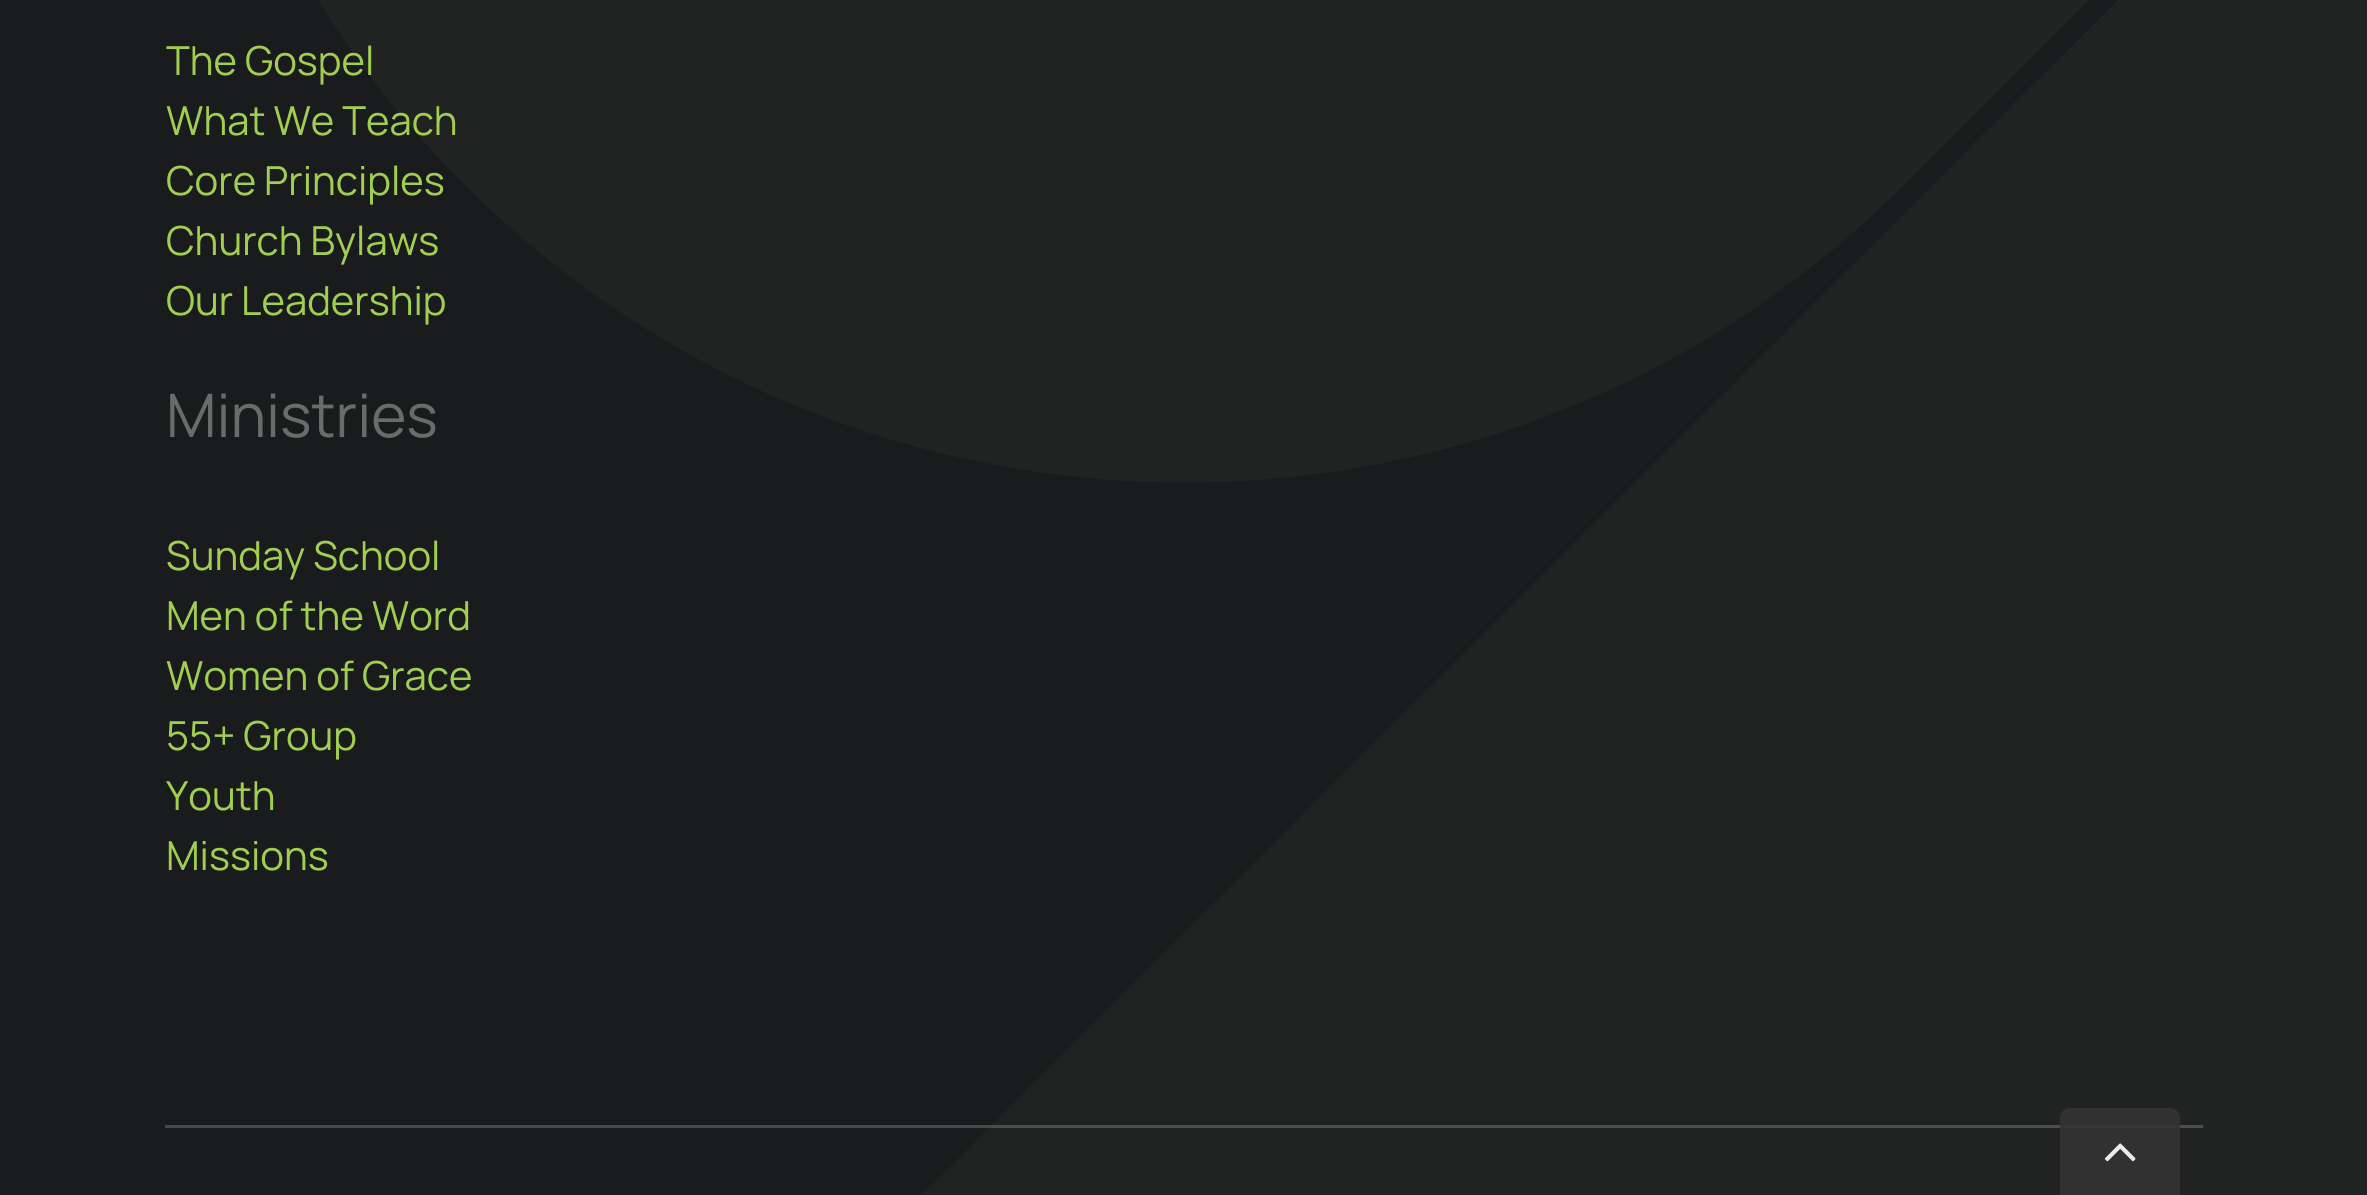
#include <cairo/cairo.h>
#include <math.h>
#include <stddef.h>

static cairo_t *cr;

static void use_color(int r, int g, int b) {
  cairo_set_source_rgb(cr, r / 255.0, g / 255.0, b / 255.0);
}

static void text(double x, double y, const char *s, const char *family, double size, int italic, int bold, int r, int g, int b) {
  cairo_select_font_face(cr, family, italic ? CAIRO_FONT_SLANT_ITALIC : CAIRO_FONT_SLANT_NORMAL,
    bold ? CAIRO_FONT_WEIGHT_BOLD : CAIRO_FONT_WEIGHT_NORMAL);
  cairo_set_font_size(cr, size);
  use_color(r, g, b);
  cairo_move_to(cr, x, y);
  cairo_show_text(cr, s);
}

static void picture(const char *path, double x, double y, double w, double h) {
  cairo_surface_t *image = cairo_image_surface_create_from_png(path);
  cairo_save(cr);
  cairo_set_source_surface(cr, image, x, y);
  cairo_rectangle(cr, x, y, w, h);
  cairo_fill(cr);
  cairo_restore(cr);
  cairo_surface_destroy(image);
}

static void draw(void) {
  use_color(26, 27, 28);
  cairo_paint(cr);
  use_color(33, 35, 35);
  cairo_set_fill_rule(cr, CAIRO_FILL_RULE_EVEN_ODD);
  cairo_new_path(cr);
  cairo_move_to(cr, 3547, 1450);
  cairo_line_to(cr, 667, 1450);
  cairo_line_to(cr, 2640, -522);
  cairo_curve_to(cr, 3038, -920, 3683, -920, 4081, -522);
  cairo_curve_to(cr, 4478, -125, 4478, 520, 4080, 918);
  cairo_close_path(cr);
  cairo_move_to(cr, 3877, -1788);
  cairo_line_to(cr, 1905, 184);
  cairo_curve_to(cr, 1507, 582, 862, 582, 464, 184);
  cairo_curve_to(cr, 67, -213, 67, -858, 465, -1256);
  cairo_line_to(cr, 997, -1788);
  cairo_close_path(cr);
  cairo_fill(cr);
  cairo_set_source_rgba(cr, 1, 1, 1, 0.2);
  cairo_rectangle(cr, 165, 1125, 2038, 3);
  cairo_fill(cr);
  cairo_set_source_rgba(cr, 0.2, 0.2, 0.2, 0.9);
  cairo_new_path(cr);
  cairo_move_to(cr, 2070, 1108);
  cairo_line_to(cr, 2170, 1108);
  cairo_curve_to(cr, 2175.5, 1108, 2180, 1112.5, 2180, 1118);
  cairo_line_to(cr, 2180, 1195);
  cairo_line_to(cr, 2060, 1195);
  cairo_line_to(cr, 2060, 1118);
  cairo_curve_to(cr, 2060, 1112.5, 2064.5, 1108, 2070, 1108);
  cairo_close_path(cr);
  cairo_fill(cr);
  picture("img_01.png", 2104, 1143, 32, 19);
  text(166, 75, "The Gospel", "Manrope", 40, 0, 0, 160, 206, 78);
  text(166, 135, "What We Teach", "Manrope", 40, 0, 0, 160, 206, 78);
  text(166, 195, "Core Principles", "Manrope", 40, 0, 0, 160, 206, 78);
  text(166, 255, "Church Bylaws", "Manrope", 40, 0, 0, 160, 206, 78);
  text(166, 315, "Our Leadership", "Manrope", 40, 0, 0, 160, 206, 78);
  text(166, 437, "Ministries", "Manrope", 60, 0, 0, 106, 107, 107);
  text(166, 570, "Sunday School", "Manrope", 40, 0, 0, 160, 206, 78);
  text(166, 630, "Men of the Word", "Manrope", 40, 0, 0, 160, 206, 78);
  text(166, 690, "Women of Grace", "Manrope", 40, 0, 0, 160, 206, 78);
  text(166, 750, "55+ Group", "Manrope", 40, 0, 0, 160, 206, 78);
  text(166, 810, "Youth", "Manrope", 40, 0, 0, 160, 206, 78);
  text(166, 870, "Missions", "Manrope", 40, 0, 0, 160, 206, 78);
}

int main(void) {
  cairo_surface_t *surface = cairo_image_surface_create(CAIRO_FORMAT_RGB24, 2367, 1195);
  cr = cairo_create(surface);
  cairo_font_options_t *options = cairo_font_options_create();
  cairo_font_options_set_hint_metrics(options, CAIRO_HINT_METRICS_OFF);
  cairo_font_options_set_hint_style(options, CAIRO_HINT_STYLE_NONE);
  cairo_set_font_options(cr, options);
  cairo_set_miter_limit(cr, 4);
  draw();
  cairo_surface_write_to_png(surface, "out.png");
  cairo_font_options_destroy(options);
  cairo_destroy(cr);
  cairo_surface_destroy(surface);
  return 0;
}
